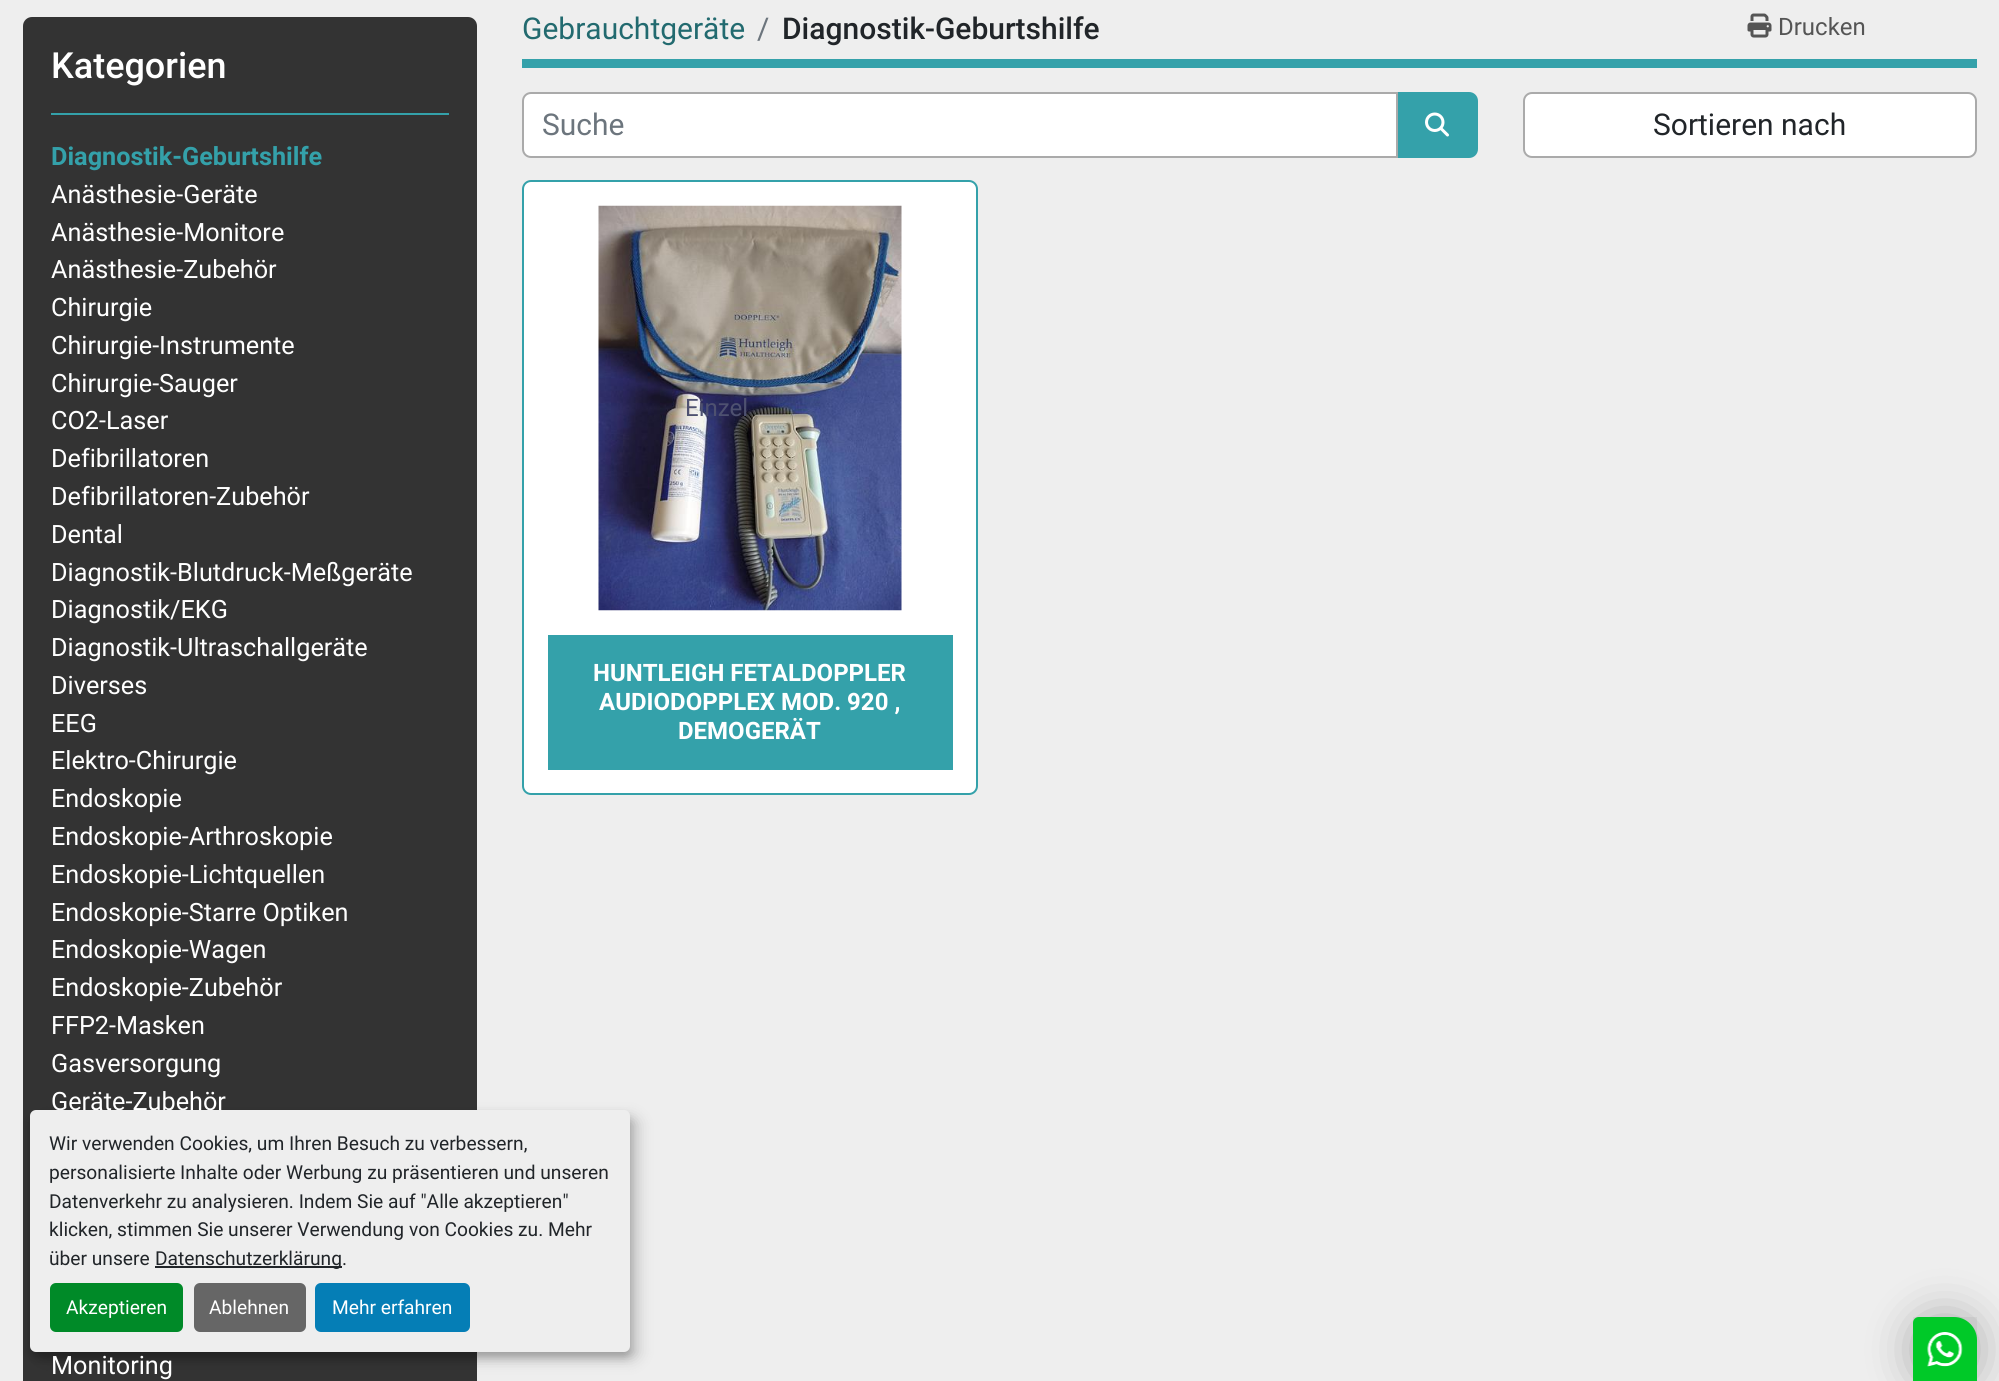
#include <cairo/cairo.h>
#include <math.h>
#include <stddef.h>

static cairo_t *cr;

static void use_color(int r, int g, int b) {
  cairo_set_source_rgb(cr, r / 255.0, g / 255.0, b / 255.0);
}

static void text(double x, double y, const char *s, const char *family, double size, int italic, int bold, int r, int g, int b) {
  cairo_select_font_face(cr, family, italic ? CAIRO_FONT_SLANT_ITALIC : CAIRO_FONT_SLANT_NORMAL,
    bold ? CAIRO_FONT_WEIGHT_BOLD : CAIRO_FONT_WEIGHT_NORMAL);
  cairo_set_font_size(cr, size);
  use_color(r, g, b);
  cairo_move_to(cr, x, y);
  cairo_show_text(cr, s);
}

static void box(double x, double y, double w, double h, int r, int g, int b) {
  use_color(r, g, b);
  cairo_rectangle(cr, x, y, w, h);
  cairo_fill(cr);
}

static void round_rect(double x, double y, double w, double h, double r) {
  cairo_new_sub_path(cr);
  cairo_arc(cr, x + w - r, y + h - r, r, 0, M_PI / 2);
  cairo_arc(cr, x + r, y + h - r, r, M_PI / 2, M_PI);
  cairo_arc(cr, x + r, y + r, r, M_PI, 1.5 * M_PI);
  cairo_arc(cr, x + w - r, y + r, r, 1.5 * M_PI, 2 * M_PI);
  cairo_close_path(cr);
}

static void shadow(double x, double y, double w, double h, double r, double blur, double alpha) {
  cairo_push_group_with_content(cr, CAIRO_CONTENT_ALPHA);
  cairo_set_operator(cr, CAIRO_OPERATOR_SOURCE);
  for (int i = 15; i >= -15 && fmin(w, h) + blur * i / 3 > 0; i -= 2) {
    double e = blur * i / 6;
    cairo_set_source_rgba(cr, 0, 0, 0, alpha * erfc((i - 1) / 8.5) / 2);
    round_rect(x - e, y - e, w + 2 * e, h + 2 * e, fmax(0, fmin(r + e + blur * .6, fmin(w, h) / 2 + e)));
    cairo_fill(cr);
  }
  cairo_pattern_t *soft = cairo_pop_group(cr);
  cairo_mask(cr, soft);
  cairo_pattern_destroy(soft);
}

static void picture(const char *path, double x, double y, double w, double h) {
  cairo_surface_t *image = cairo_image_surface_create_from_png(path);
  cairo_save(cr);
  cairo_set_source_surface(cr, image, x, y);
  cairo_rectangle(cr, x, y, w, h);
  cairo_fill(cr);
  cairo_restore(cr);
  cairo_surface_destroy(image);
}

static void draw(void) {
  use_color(238, 238, 238);
  cairo_paint(cr);
  use_color(51, 51, 51);
  round_rect(23, 17, 454, 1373, 9);
  cairo_fill(cr);
  box(51, 113, 398, 2, 52, 161, 170);
  box(522, 59, 1455, 9, 52, 161, 170);
  picture("img_01.png", 1747, 13, 25, 25);
  use_color(255, 255, 255);
  cairo_new_path(cr);
  cairo_move_to(cr, 531, 93);
  cairo_line_to(cr, 1397, 93);
  cairo_line_to(cr, 1397, 157);
  cairo_line_to(cr, 531, 157);
  cairo_curve_to(cr, 526.5, 157, 523, 153.5, 523, 149);
  cairo_line_to(cr, 523, 101);
  cairo_curve_to(cr, 523, 96.5, 526.5, 93, 531, 93);
  cairo_close_path(cr);
  cairo_fill_preserve(cr);
  use_color(170, 170, 170);
  cairo_stroke(cr);
  use_color(52, 161, 170);
  cairo_new_path(cr);
  cairo_move_to(cr, 1399, 93);
  cairo_line_to(cr, 1469, 93);
  cairo_curve_to(cr, 1473.5, 93, 1477, 96.5, 1477, 101);
  cairo_line_to(cr, 1477, 149);
  cairo_curve_to(cr, 1477, 153.5, 1473.5, 157, 1469, 157);
  cairo_line_to(cr, 1399, 157);
  cairo_close_path(cr);
  cairo_fill_preserve(cr);
  cairo_stroke(cr);
  picture("img_02.png", 1425, 112, 24, 25);
  use_color(255, 255, 255);
  round_rect(1524, 93, 452, 64, 8);
  cairo_fill_preserve(cr);
  use_color(170, 170, 170);
  cairo_stroke(cr);
  use_color(255, 255, 255);
  round_rect(523, 181, 454, 613, 8);
  cairo_fill_preserve(cr);
  use_color(52, 161, 170);
  cairo_stroke(cr);
  picture("img_03.png", 598, 205, 304, 406);
  box(548, 635, 405, 135, 52, 161, 170);
  use_color(0, 0, 0);
  shadow(38, 1118, 600, 241, 6, 7.5, 0.19);
  shadow(30, 1116, 600, 242, 6, 4.5, 0.2);
  shadow(1913, 1317, 64, 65, 23, 22.5, 0.3);
  use_color(0, 211, 42);
  cairo_new_path(cr);
  cairo_move_to(cr, 1919, 1317);
  cairo_line_to(cr, 1954, 1317);
  cairo_curve_to(cr, 1966.5, 1317, 1977, 1327.5, 1977, 1340);
  cairo_line_to(cr, 1977, 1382);
  cairo_line_to(cr, 1913, 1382);
  cairo_line_to(cr, 1913, 1323);
  cairo_curve_to(cr, 1913, 1319.5, 1915.5, 1317, 1919, 1317);
  cairo_close_path(cr);
  cairo_fill(cr);
  cairo_set_source_rgba(cr, 0, 0, 0, 0.05);
  cairo_rectangle(cr, 1913, 1317, 64, 64);
  cairo_fill(cr);
  picture("img_04.png", 1927, 1332, 36, 35);
  text(51, 78, "Kategorien", "Roboto Medium", 36, 0, 0, 255, 255, 255);
  text(51, 165, "Diagnostik-Geburtshilfe", "Roboto", 25.25, 0, 1, 52, 161, 170);
  text(51, 203, "Anästhesie-Geräte", "Roboto", 25.25, 0, 0, 255, 255, 255);
  text(51, 241, "Anästhesie-Monitore", "Roboto", 25.25, 0, 0, 255, 255, 255);
  text(51, 278, "Anästhesie-Zubehör", "Roboto", 25.25, 0, 0, 255, 255, 255);
  text(51, 316, "Chirurgie", "Roboto", 25.25, 0, 0, 255, 255, 255);
  text(51, 354, "Chirurgie-Instrumente", "Roboto", 25.25, 0, 0, 255, 255, 255);
  text(51, 392, "Chirurgie-Sauger", "Roboto", 25.25, 0, 0, 255, 255, 255);
  text(51, 429, "CO2-Laser", "Roboto", 25.25, 0, 0, 255, 255, 255);
  text(51, 467, "Defibrillatoren", "Roboto", 25.25, 0, 0, 255, 255, 255);
  text(51, 505, "Defibrillatoren-Zubehör", "Roboto", 25.25, 0, 0, 255, 255, 255);
  text(51, 543, "Dental", "Roboto", 25.25, 0, 0, 255, 255, 255);
  text(51, 581, "Diagnostik-Blutdruck-Meßgeräte", "Roboto", 25.25, 0, 0, 255, 255, 255);
  text(51, 618, "Diagnostik/EKG", "Roboto", 25.25, 0, 0, 255, 255, 255);
  text(51, 656, "Diagnostik-Ultraschallgeräte", "Roboto", 25.25, 0, 0, 255, 255, 255);
  text(51, 694, "Diverses", "Roboto", 25.25, 0, 0, 255, 255, 255);
  text(51, 732, "EEG", "Roboto", 25.25, 0, 0, 255, 255, 255);
  text(51, 769, "Elektro-Chirurgie", "Roboto", 25.25, 0, 0, 255, 255, 255);
  text(51, 807, "Endoskopie", "Roboto", 25.25, 0, 0, 255, 255, 255);
  text(51, 845, "Endoskopie-Arthroskopie", "Roboto", 25.25, 0, 0, 255, 255, 255);
  text(51, 883, "Endoskopie-Lichtquellen", "Roboto", 25.25, 0, 0, 255, 255, 255);
  text(51, 921, "Endoskopie-Starre Optiken", "Roboto", 25.25, 0, 0, 255, 255, 255);
  text(51, 958, "Endoskopie-Wagen", "Roboto", 25.25, 0, 0, 255, 255, 255);
  text(51, 996, "Endoskopie-Zubehör", "Roboto", 25.25, 0, 0, 255, 255, 255);
  text(51, 1034, "FFP2-Masken", "Roboto", 25.25, 0, 0, 255, 255, 255);
  text(51, 1072, "Gasversorgung", "Roboto", 25.25, 0, 0, 255, 255, 255);
  text(51, 1110, "Geräte-Zubehör", "Roboto", 25.25, 0, 0, 255, 255, 255);
  text(51, 1374, "Monitoring", "Roboto", 25.25, 0, 0, 255, 255, 255);
  text(522, 39, "Gebrauchtgeräte", "Roboto", 30, 0, 0, 34, 106, 111);
  text(757, 39, "/", "Roboto", 30, 0, 0, 108, 117, 125);
  text(782, 39, "Diagnostik-Geburtshilfe", "Roboto Medium", 30, 0, 0, 33, 37, 41);
  text(1778, 35, "Drucken", "Roboto", 24, 0, 0, 85, 85, 85);
  text(542, 135, "Suche", "Roboto", 30, 0, 0, 108, 117, 125);
  text(1653, 135, "Sortieren nach", "Roboto", 30, 0, 0, 33, 37, 41);
  text(685, 416, "Einzel", "Roboto", 24, 0, 0, 78, 81, 112);
  text(593, 681, "HUNTLEIGH FETALDOPPLER", "Roboto", 24, 0, 1, 255, 255, 255);
  text(599, 710, "AUDIODOPPLEX MOD. 920 ,", "Roboto", 24, 0, 1, 255, 255, 255);
  text(678, 739, "DEMOGERÄT", "Roboto", 24, 0, 1, 255, 255, 255);
  use_color(238, 238, 238);
  round_rect(30, 1110, 600, 242, 6);
  cairo_fill(cr);
  text(49, 1150, "Wir verwenden Cookies, um Ihren Besuch zu verbessern,", "Roboto", 19.2, 0, 0, 33, 37, 41);
  text(49, 1179, "personalisierte Inhalte oder Werbung zu präsentieren und unseren", "Roboto", 19.2, 0, 0, 33, 37, 41);
  text(49, 1208, "Datenverkehr zu analysieren. Indem Sie auf \"Alle akzeptieren\"", "Roboto", 19.2, 0, 0, 33, 37, 41);
  text(49, 1236, "klicken, stimmen Sie unserer Verwendung von Cookies zu. Mehr", "Roboto", 19.2, 0, 0, 33, 37, 41);
  text(49, 1265, "über unsere", "Roboto", 19.2, 0, 0, 33, 37, 41);
  box(155, 1266, 187, 2, 33, 37, 41);
  text(155, 1265, "Datenschutzerklärung.", "Roboto", 19.2, 0, 0, 33, 37, 41);
  use_color(0, 138, 40);
  round_rect(50, 1283, 133, 49, 6);
  cairo_fill(cr);
  text(66, 1314, "Akzeptieren", "Roboto", 19.2, 0, 0, 255, 255, 255);
  use_color(102, 102, 102);
  round_rect(194, 1283, 112, 49, 6);
  cairo_fill(cr);
  text(209, 1314, "Ablehnen", "Roboto", 19.2, 0, 0, 255, 255, 255);
  use_color(5, 126, 182);
  round_rect(315, 1283, 155, 49, 6);
  cairo_fill(cr);
  text(332, 1314, "Mehr erfahren", "Roboto", 19.2, 0, 0, 255, 255, 255);
}

int main(void) {
  cairo_surface_t *surface = cairo_image_surface_create(CAIRO_FORMAT_RGB24, 1999, 1381);
  cr = cairo_create(surface);
  cairo_font_options_t *options = cairo_font_options_create();
  cairo_font_options_set_hint_metrics(options, CAIRO_HINT_METRICS_OFF);
  cairo_font_options_set_hint_style(options, CAIRO_HINT_STYLE_NONE);
  cairo_set_font_options(cr, options);
  cairo_set_miter_limit(cr, 4);
  draw();
  cairo_surface_write_to_png(surface, "out.png");
  cairo_font_options_destroy(options);
  cairo_destroy(cr);
  cairo_surface_destroy(surface);
  return 0;
}
